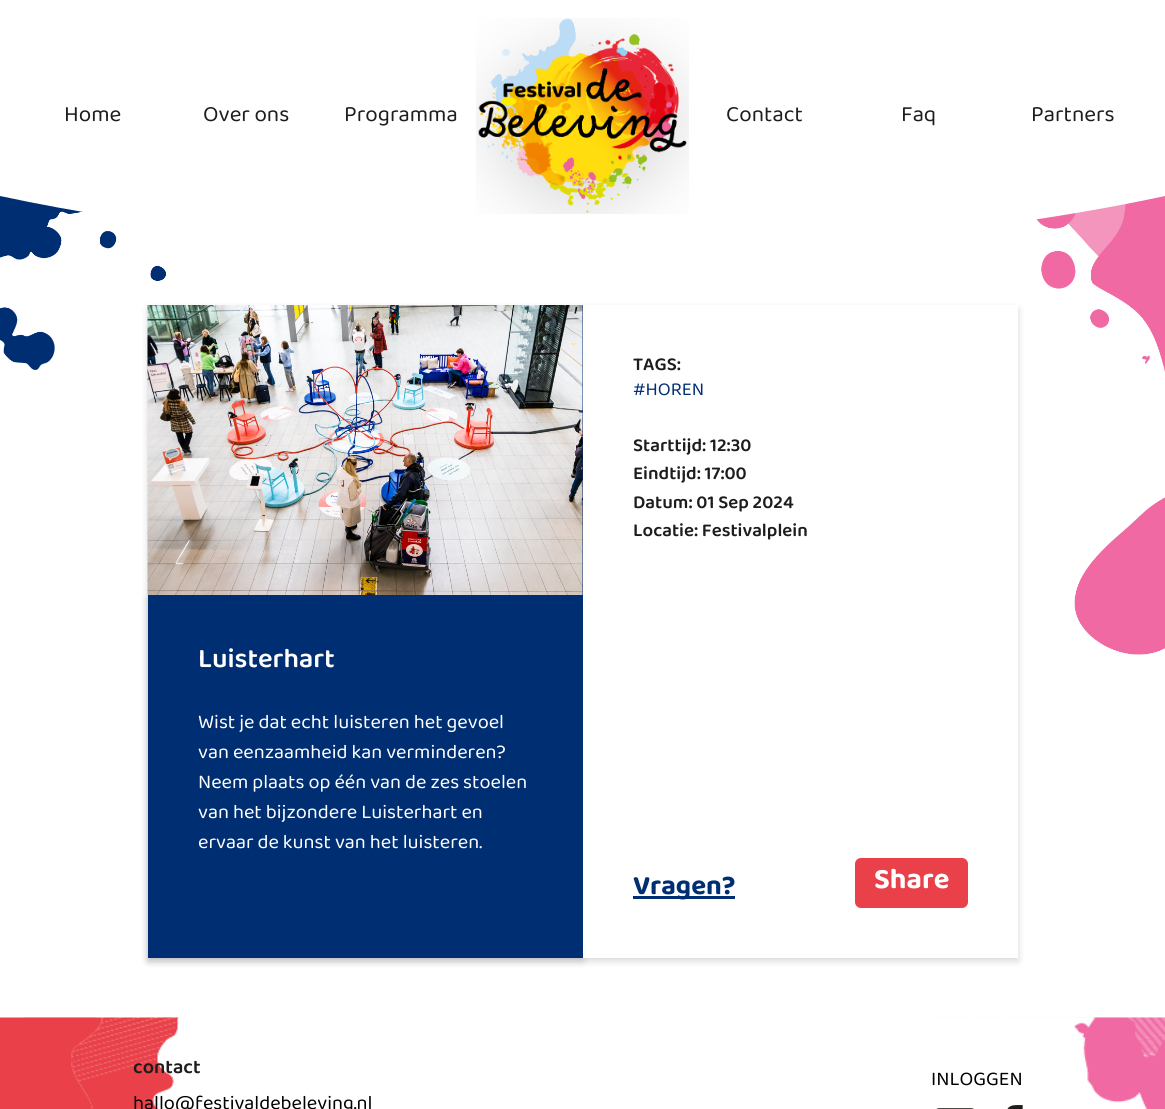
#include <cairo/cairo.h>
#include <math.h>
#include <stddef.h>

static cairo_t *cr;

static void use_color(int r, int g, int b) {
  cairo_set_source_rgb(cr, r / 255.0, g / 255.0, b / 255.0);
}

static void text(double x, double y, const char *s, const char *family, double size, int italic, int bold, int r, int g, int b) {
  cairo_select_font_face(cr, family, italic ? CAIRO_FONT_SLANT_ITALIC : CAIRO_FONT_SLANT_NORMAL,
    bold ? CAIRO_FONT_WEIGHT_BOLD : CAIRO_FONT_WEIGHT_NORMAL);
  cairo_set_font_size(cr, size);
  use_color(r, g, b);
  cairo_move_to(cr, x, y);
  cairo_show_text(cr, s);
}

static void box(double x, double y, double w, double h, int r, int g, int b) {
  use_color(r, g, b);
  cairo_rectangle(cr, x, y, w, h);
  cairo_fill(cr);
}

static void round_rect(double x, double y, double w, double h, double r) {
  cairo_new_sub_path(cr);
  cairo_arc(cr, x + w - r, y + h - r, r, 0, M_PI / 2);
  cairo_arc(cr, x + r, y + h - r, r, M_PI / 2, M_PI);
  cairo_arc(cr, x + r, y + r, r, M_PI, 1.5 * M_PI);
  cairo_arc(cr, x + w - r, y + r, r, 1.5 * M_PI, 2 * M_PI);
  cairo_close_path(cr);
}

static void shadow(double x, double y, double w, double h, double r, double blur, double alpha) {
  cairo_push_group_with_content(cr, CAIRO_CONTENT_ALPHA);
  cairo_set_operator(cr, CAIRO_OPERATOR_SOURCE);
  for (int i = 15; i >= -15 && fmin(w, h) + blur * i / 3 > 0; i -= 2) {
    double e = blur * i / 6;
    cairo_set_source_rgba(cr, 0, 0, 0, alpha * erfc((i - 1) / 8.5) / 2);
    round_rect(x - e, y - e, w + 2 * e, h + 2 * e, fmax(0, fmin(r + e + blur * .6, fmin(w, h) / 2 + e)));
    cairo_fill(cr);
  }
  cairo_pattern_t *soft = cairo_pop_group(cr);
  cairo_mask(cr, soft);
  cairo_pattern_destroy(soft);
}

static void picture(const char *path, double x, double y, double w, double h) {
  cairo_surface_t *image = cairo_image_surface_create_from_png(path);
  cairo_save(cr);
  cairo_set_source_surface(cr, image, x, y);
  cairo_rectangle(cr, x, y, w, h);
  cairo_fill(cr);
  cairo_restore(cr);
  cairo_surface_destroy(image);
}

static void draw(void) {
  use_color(255, 255, 255);
  cairo_paint(cr);
  picture("img_02.png", 0, 196, 1165, 822);
  use_color(255, 255, 255);
  cairo_new_path(cr);
  cairo_move_to(cr, 0, 0);
  cairo_line_to(cr, 1165, 0);
  cairo_line_to(cr, 1165, 196);
  cairo_curve_to(cr, 1016, 228, 829, 249, 624, 251);
  cairo_line_to(cr, 541, 251);
  cairo_curve_to(cr, 336, 249, 149, 228, 0, 196);
  cairo_close_path(cr);
  cairo_fill(cr);
  picture("img_01.png", 476, 18, 213, 196);
  use_color(0, 0, 0);
  shadow(148, 309, 870, 652, 0, 4, 0.16);
  shadow(148, 599, 435, 362, 0, 4, 0.16);
  box(582, 305, 1, 290, 0, 46, 115);
  picture("img_03.png", 147, 305, 436, 290);
  box(148, 595, 435, 363, 0, 46, 115);
  box(583, 305, 435, 653, 255, 255, 255);
  box(633, 896, 102, 3, 0, 46, 115);
  use_color(233, 64, 73);
  round_rect(855, 858, 113, 50, 6);
  cairo_fill(cr);
  picture("img_04.png", 0, 1017, 1165, 92);
  picture("img_05.png", 936, 1108, 38, 1);
  picture("img_06.png", 1007, 1105, 16, 4);
  text(64, 121, "Home", "Baloo Da 2", 22.5, 0, 0, 29, 29, 27);
  text(203, 121, "Over ons", "Baloo Da 2", 22.5, 0, 0, 29, 29, 27);
  text(344, 121, "Programma", "Baloo Da 2", 22.5, 0, 0, 29, 29, 27);
  text(726, 121, "Contact", "Baloo Da 2", 22.5, 0, 0, 29, 29, 27);
  text(901, 121, "Faq", "Baloo Da 2", 22.5, 0, 0, 29, 29, 27);
  text(1031, 121, "Partners", "Baloo Da 2", 22.5, 0, 0, 29, 29, 27);
  text(198, 667, "Luisterhart", "Baloo Da 2 SemiBold", 27.5, 0, 0, 255, 255, 255);
  text(198, 728, "Wist je dat echt luisteren het gevoel", "Baloo Da 2", 20, 0, 0, 255, 255, 255);
  text(198, 758, "van eenzaamheid kan verminderen?", "Baloo Da 2", 20, 0, 0, 255, 255, 255);
  text(198, 788, "Neem plaats op één van de zes stoelen", "Baloo Da 2", 20, 0, 0, 255, 255, 255);
  text(198, 818, "van het bijzondere Luisterhart en", "Baloo Da 2", 20, 0, 0, 255, 255, 255);
  text(198, 848, "ervaar de kunst van het luisteren.", "Baloo Da 2", 20, 0, 0, 255, 255, 255);
  text(633, 370, "TAGS:", "Baloo Da 2 SemiBold", 18.75, 0, 0, 29, 29, 27);
  text(633, 395, "#HOREN", "Baloo Da 2", 18.75, 0, 0, 0, 46, 115);
  text(633, 451, "Starttijd: 12:30", "Baloo Da 2 SemiBold", 18.75, 0, 0, 29, 29, 27);
  text(633, 479, "Eindtijd: 17:00", "Baloo Da 2 SemiBold", 18.75, 0, 0, 29, 29, 27);
  text(633, 508, "Datum: 01 Sep 2024", "Baloo Da 2 SemiBold", 18.75, 0, 0, 29, 29, 27);
  text(633, 536, "Locatie: Festivalplein", "Baloo Da 2 SemiBold", 18.75, 0, 0, 29, 29, 27);
  text(633, 894, "Vragen?", "Baloo Da 2", 27.5, 0, 1, 0, 46, 115);
  text(874, 888, "Share", "Baloo Da 2", 29, 0, 1, 255, 255, 255);
  text(133, 1073, "contact", "Baloo Da 2 SemiBold", 20, 0, 0, 29, 29, 27);
  text(133, 1109, "hallo@festivaldebeleving.nl", "Baloo Da 2", 20, 0, 0, 0, 0, 0);
  text(931, 1085, "INLOGGEN", "Baloo Da 2", 20, 0, 0, 0, 0, 0);
}

int main(void) {
  cairo_surface_t *surface = cairo_image_surface_create(CAIRO_FORMAT_RGB24, 1165, 1109);
  cr = cairo_create(surface);
  cairo_font_options_t *options = cairo_font_options_create();
  cairo_font_options_set_hint_metrics(options, CAIRO_HINT_METRICS_OFF);
  cairo_font_options_set_hint_style(options, CAIRO_HINT_STYLE_NONE);
  cairo_set_font_options(cr, options);
  cairo_set_miter_limit(cr, 4);
  draw();
  cairo_surface_write_to_png(surface, "out.png");
  cairo_font_options_destroy(options);
  cairo_destroy(cr);
  cairo_surface_destroy(surface);
  return 0;
}
